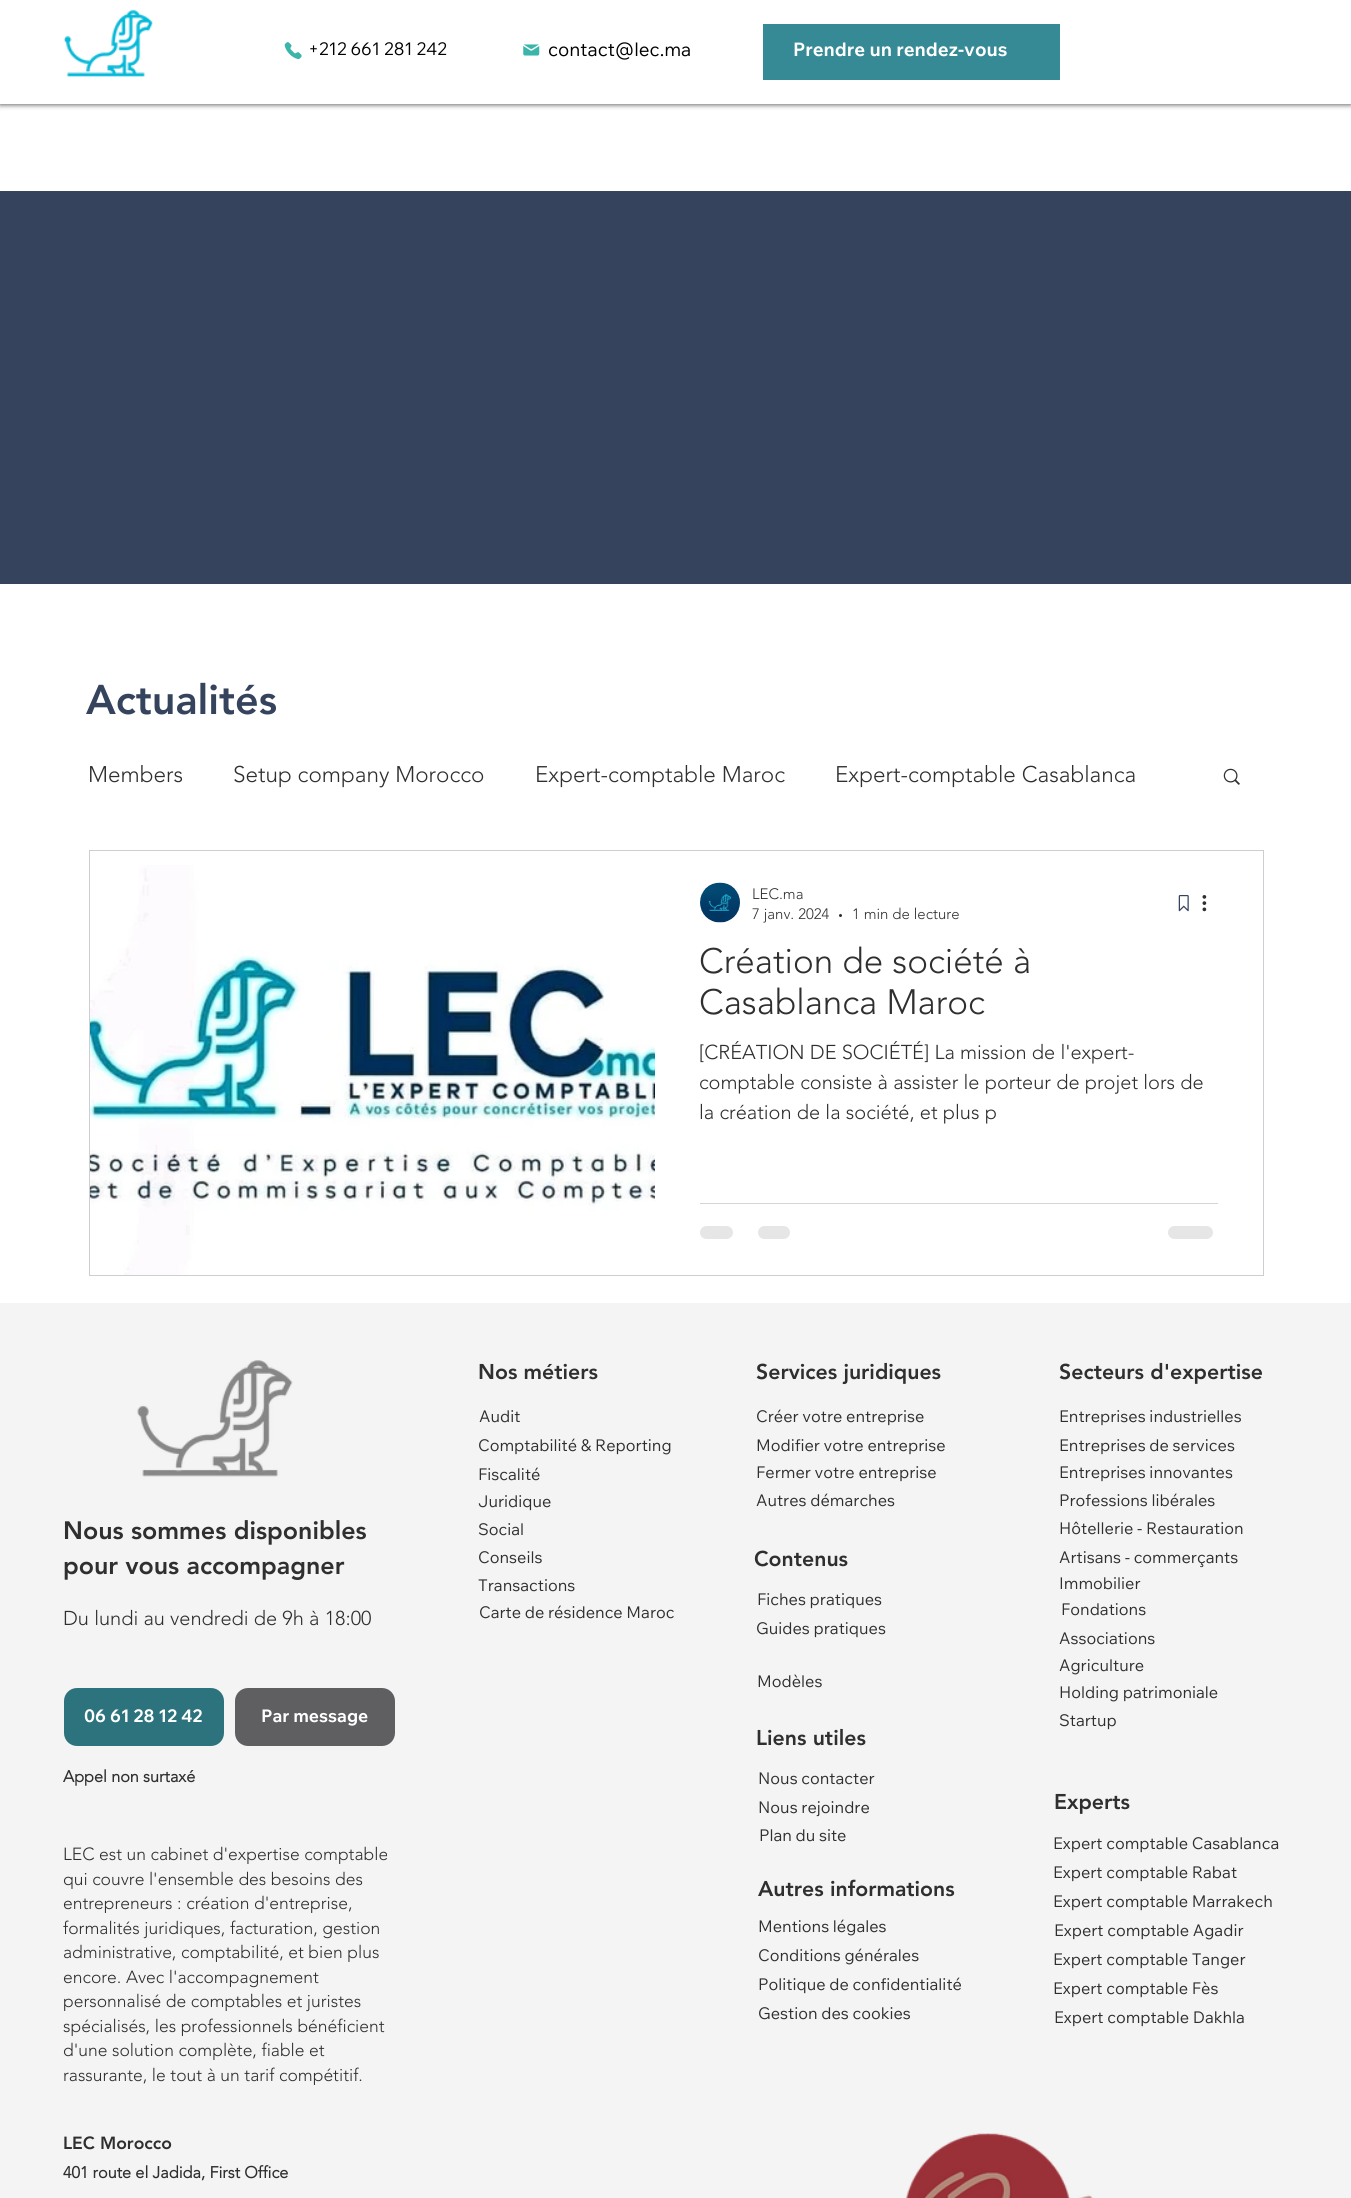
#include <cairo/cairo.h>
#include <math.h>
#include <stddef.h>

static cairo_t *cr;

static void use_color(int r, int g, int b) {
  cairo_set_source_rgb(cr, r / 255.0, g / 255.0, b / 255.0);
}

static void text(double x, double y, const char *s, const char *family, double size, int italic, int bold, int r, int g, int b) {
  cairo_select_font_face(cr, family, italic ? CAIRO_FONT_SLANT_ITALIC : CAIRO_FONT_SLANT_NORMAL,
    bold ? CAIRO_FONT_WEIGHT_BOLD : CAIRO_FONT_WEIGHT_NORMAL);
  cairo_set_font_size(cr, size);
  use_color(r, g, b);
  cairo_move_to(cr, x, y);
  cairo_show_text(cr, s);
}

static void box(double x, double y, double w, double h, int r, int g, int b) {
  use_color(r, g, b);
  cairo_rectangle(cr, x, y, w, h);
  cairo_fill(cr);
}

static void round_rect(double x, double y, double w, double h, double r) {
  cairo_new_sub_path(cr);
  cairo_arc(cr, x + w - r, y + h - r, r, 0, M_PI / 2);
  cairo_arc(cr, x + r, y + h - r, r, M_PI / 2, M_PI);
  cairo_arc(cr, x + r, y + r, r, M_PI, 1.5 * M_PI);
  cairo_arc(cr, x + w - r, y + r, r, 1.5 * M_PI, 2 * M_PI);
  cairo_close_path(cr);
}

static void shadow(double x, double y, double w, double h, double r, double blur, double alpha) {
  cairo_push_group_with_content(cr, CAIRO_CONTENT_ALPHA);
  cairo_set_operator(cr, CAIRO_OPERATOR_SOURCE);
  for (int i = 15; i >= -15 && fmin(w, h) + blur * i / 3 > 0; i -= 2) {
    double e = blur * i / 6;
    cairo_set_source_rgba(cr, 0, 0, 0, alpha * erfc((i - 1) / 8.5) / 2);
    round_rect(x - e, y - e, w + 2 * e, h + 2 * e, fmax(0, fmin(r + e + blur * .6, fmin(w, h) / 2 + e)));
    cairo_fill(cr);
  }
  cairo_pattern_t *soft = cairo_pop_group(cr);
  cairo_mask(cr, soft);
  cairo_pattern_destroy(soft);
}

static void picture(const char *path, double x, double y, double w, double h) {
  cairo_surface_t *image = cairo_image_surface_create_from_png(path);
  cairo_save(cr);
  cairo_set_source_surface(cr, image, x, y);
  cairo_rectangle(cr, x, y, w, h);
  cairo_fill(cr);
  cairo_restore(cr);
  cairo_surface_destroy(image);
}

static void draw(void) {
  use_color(255, 255, 255);
  cairo_paint(cr);
  use_color(0, 0, 0);
  shadow(0, 1, 1351, 104, 0, 2.5, 0.6);
  box(0, 0, 1351, 104, 255, 255, 255);
  picture("img_01.png", 64, 9, 89, 68);
  picture("img_02.png", 284, 42, 18, 18);
  box(763, 24, 297, 56, 53, 138, 149);
  picture("img_03.png", 523, 44, 17, 12);
  box(0, 191, 1351, 393, 53, 67, 93);
  picture("img_04.png", 1223, 768, 17, 17);
  cairo_rectangle(cr, 89.5, 850.5, 1174, 425);
  use_color(206, 205, 209);
  cairo_set_line_width(cr, 1);
  cairo_stroke(cr);
  picture("img_05.png", 90, 865, 565, 410);
  picture("img_06.png", 700, 882, 40, 41);
  use_color(47, 46, 46);
  cairo_arc(cr, 840.5, 915.5, 1.5, 0, 2 * M_PI);
  cairo_fill(cr);
  picture("img_07.png", 1178, 895, 11, 17);
  picture("img_08.png", 1202, 895, 5, 17);
  box(700, 1203, 518, 1, 213, 213, 213);
  use_color(230, 230, 230);
  round_rect(700, 1226, 33, 13, 6.5);
  cairo_fill(cr);
  round_rect(758, 1226, 32, 13, 6.5);
  cairo_fill(cr);
  round_rect(1168, 1226, 45, 13, 6.5);
  cairo_fill(cr);
  box(0, 1303, 1351, 895, 245, 244, 245);
  picture("img_09.png", 137, 1360, 156, 117);
  use_color(44, 115, 125);
  round_rect(64, 1688, 160, 58, 13);
  cairo_fill(cr);
  use_color(95, 94, 97);
  round_rect(235, 1688, 160, 58, 13);
  cairo_fill(cr);
  picture("img_10.png", 906, 2133, 187, 65);
  text(308, 55, "+212 661 281 242", "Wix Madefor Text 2", 17.5, 0, 0, 0, 0, 0);
  text(548, 56, "contact@lec.ma", "Wix Madefor Text 2", 18.75, 0, 0, 0, 0, 0);
  text(793, 56, "Prendre un rendez-vous", "Wix Madefor Text 2", 18.75, 0, 1, 255, 255, 255);
  text(86, 714, "Actualités", "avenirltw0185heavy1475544 Black", 41.25, 0, 0, 53, 67, 93);
  text(88, 782, "Members", "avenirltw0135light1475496 Light", 22.5, 0, 0, 47, 47, 48);
  text(233, 782, "Setup company Morocco", "avenirltw0135light1475496 Light", 22.5, 0, 0, 47, 47, 48);
  text(535, 782, "Expert-comptable Maroc", "avenirltw0135light1475496 Light", 22.5, 0, 0, 47, 47, 48);
  text(835, 782, "Expert-comptable Casablanca", "avenirltw0135light1475496 Light", 22.5, 0, 0, 47, 47, 48);
  text(752, 899, "LEC.ma", "avenirltw0135light1475496 Light", 15, 0, 0, 47, 47, 48);
  text(752, 919, "7 janv. 2024", "avenirltw0135light1475496 Light", 15, 0, 0, 47, 47, 48);
  text(852, 919, "1 min de lecture", "avenirltw0135light1475496 Light", 15, 0, 0, 47, 47, 48);
  text(699, 973, "Création de société à", "avenirltw0135light1475496 Light", 35, 0, 0, 47, 47, 48);
  text(699, 1014, "Casablanca Maroc", "avenirltw0135light1475496 Light", 35, 0, 0, 47, 47, 48);
  text(699, 1059, "[CRÉATION DE SOCIÉTÉ] La mission de l'expert-", "avenirltw0135light1475496 Light", 20, 0, 0, 47, 47, 48);
  text(699, 1089, "comptable consiste à assister le porteur de projet lors de", "avenirltw0135light1475496 Light", 20, 0, 0, 47, 47, 48);
  text(699, 1119, "la création de la société, et plus p", "avenirltw0135light1475496 Light", 20, 0, 0, 47, 47, 48);
  text(478, 1379, "Nos métiers", "avenirltw0185heavy1475544 Black", 21.25, 0, 0, 47, 47, 48);
  text(756, 1379, "Services juridiques", "avenirltw0185heavy1475544 Black", 21.25, 0, 0, 47, 47, 48);
  text(756, 1422, "Créer votre entreprise", "Wix Madefor Text", 16.25, 0, 0, 47, 47, 48);
  text(756, 1451, "Modifier votre entreprise", "Wix Madefor Text", 16.25, 0, 0, 47, 47, 48);
  text(756, 1478, "Fermer votre entreprise", "Wix Madefor Text", 16.25, 0, 0, 47, 47, 48);
  text(756, 1506, "Autres démarches", "Wix Madefor Text", 16.25, 0, 0, 47, 47, 48);
  text(1059, 1379, "Secteurs d'expertise", "avenirltw0185heavy1475544 Black", 21.25, 0, 0, 47, 47, 48);
  text(1059, 1422, "Entreprises industrielles", "Wix Madefor Text", 16.25, 0, 0, 47, 47, 48);
  text(1059, 1451, "Entreprises de services", "Wix Madefor Text", 16.25, 0, 0, 47, 47, 48);
  text(1059, 1478, "Entreprises innovantes", "Wix Madefor Text", 16.25, 0, 0, 47, 47, 48);
  text(1059, 1506, "Professions libérales", "Wix Madefor Text", 16.25, 0, 0, 47, 47, 48);
  text(1059, 1534, "Hôtellerie - Restauration", "Wix Madefor Text", 16.25, 0, 0, 47, 47, 48);
  text(1059, 1563, "Artisans - commerçants", "Wix Madefor Text", 16.25, 0, 0, 47, 47, 48);
  text(1059, 1589, "Immobilier", "Wix Madefor Text", 16.25, 0, 0, 47, 47, 48);
  text(1061, 1615, "Fondations", "Wix Madefor Text", 16.25, 0, 0, 47, 47, 48);
  text(1059, 1644, "Associations", "Wix Madefor Text", 16.25, 0, 0, 47, 47, 48);
  text(1059, 1671, "Agriculture", "Wix Madefor Text", 16.25, 0, 0, 47, 47, 48);
  text(1059, 1698, "Holding patrimoniale", "Wix Madefor Text", 16.25, 0, 0, 47, 47, 48);
  text(1059, 1726, "Startup", "Wix Madefor Text", 16.25, 0, 0, 47, 47, 48);
  text(63, 1539, "Nous sommes disponibles", "avenirltw0185heavy1475544 Black", 25, 0, 0, 47, 47, 48);
  text(63, 1574, "pour vous accompagner", "avenirltw0185heavy1475544 Black", 25, 0, 0, 47, 47, 48);
  text(63, 1625, "Du lundi au vendredi de 9h à 18:00", "avenirltw0135light1475496 Light", 20, 0, 0, 47, 47, 48);
  text(479, 1422, "Audit", "Wix Madefor Text", 16.25, 0, 0, 47, 47, 48);
  text(478, 1451, "Comptabilité & Reporting", "Wix Madefor Text", 16.25, 0, 0, 47, 47, 48);
  text(478, 1480, "Fiscalité", "Wix Madefor Text", 16.25, 0, 0, 47, 47, 48);
  text(478, 1507, "Juridique", "Wix Madefor Text", 16.25, 0, 0, 47, 47, 48);
  text(478, 1535, "Social", "Wix Madefor Text", 16.25, 0, 0, 47, 47, 48);
  text(478, 1563, "Conseils", "Wix Madefor Text", 16.25, 0, 0, 47, 47, 48);
  text(478, 1591, "Transactions", "Wix Madefor Text", 16.25, 0, 0, 47, 47, 48);
  text(479, 1618, "Carte de résidence Maroc", "Wix Madefor Text", 16.25, 0, 0, 47, 47, 48);
  text(754, 1566, "Contenus", "avenirltw0185heavy1475544 Black", 21.25, 0, 0, 47, 47, 48);
  text(757, 1605, "Fiches pratiques", "Wix Madefor Text", 16.25, 0, 0, 47, 47, 48);
  text(756, 1634, "Guides pratiques", "Wix Madefor Text", 16.25, 0, 0, 47, 47, 48);
  text(757, 1687, "Modèles", "Wix Madefor Text", 16.25, 0, 0, 47, 47, 48);
  text(84, 1722, "06 61 28 12 42", "Wix Madefor Text", 17.5, 0, 1, 255, 255, 255);
  text(261, 1722, "Par message", "Wix Madefor Text", 17.5, 0, 1, 255, 255, 255);
  text(63, 1782, "Appel non surtaxé", "avenirltw0135light1475496", 16.25, 0, 1, 47, 47, 48);
  text(756, 1745, "Liens utiles", "avenirltw0185heavy1475544 Black", 21.25, 0, 0, 47, 47, 48);
  text(758, 1784, "Nous contacter", "Wix Madefor Text", 16.25, 0, 0, 47, 47, 48);
  text(758, 1813, "Nous rejoindre", "Wix Madefor Text", 16.25, 0, 0, 47, 47, 48);
  text(759, 1841, "Plan du site", "Wix Madefor Text", 16.25, 0, 0, 47, 47, 48);
  text(63, 1860, "LEC est un cabinet d'expertise comptable", "avenirltw0135light1475496 Light", 17.5, 0, 0, 47, 47, 48);
  text(63, 1885, "qui couvre l'ensemble des besoins des", "avenirltw0135light1475496 Light", 17.5, 0, 0, 47, 47, 48);
  text(63, 1909, "entrepreneurs : création d'entreprise,", "avenirltw0135light1475496 Light", 17.5, 0, 0, 47, 47, 48);
  text(63, 1934, "formalités juridiques, facturation, gestion", "avenirltw0135light1475496 Light", 17.5, 0, 0, 47, 47, 48);
  text(63, 1958, "administrative, comptabilité, et bien plus", "avenirltw0135light1475496 Light", 17.5, 0, 0, 47, 47, 48);
  text(63, 1983, "encore. Avec l'accompagnement", "avenirltw0135light1475496 Light", 17.5, 0, 0, 47, 47, 48);
  text(63, 2007, "personnalisé de comptables et juristes", "avenirltw0135light1475496 Light", 17.5, 0, 0, 47, 47, 48);
  text(63, 2032, "spécialisés, les professionnels bénéficient", "avenirltw0135light1475496 Light", 17.5, 0, 0, 47, 47, 48);
  text(63, 2056, "d'une solution complète, fiable et", "avenirltw0135light1475496 Light", 17.5, 0, 0, 47, 47, 48);
  text(63, 2081, "rassurante, le tout à un tarif compétitif.", "avenirltw0135light1475496 Light", 17.5, 0, 0, 47, 47, 48);
  text(758, 1896, "Autres informations", "avenirltw0185heavy1475544 Black", 21.25, 0, 0, 47, 47, 48);
  text(758, 1932, "Mentions légales", "Wix Madefor Text", 16.25, 0, 0, 47, 47, 48);
  text(758, 1961, "Conditions générales", "Wix Madefor Text", 16.25, 0, 0, 47, 47, 48);
  text(758, 1990, "Politique de confidentialité", "Wix Madefor Text", 16.25, 0, 0, 47, 47, 48);
  text(758, 2019, "Gestion des cookies", "Wix Madefor Text", 16.25, 0, 0, 47, 47, 48);
  text(1054, 1809, "Experts", "avenirltw0185heavy1475544 Black", 21.25, 0, 0, 47, 47, 48);
  text(1053, 1849, "Expert comptable Casablanca", "Wix Madefor Text", 16.25, 0, 0, 47, 47, 48);
  text(1053, 1878, "Expert comptable Rabat", "Wix Madefor Text", 16.25, 0, 0, 47, 47, 48);
  text(1053, 1907, "Expert comptable Marrakech", "Wix Madefor Text", 16.25, 0, 0, 47, 47, 48);
  text(1054, 1936, "Expert comptable Agadir", "Wix Madefor Text", 16.25, 0, 0, 47, 47, 48);
  text(1053, 1965, "Expert comptable Tanger", "Wix Madefor Text", 16.25, 0, 0, 47, 47, 48);
  text(1053, 1994, "Expert comptable Fès", "Wix Madefor Text", 16.25, 0, 0, 47, 47, 48);
  text(1054, 2023, "Expert comptable Dakhla", "Wix Madefor Text", 16.25, 0, 0, 47, 47, 48);
  text(63, 2149, "LEC Morocco", "avenirltw0185heavy1475544 Black", 17.5, 0, 0, 47, 47, 48);
  text(63, 2178, "401 route el Jadida, First Office", "avenirltw0135light1475496", 16.25, 0, 1, 47, 47, 48);
}

int main(void) {
  cairo_surface_t *surface = cairo_image_surface_create(CAIRO_FORMAT_RGB24, 1351, 2198);
  cr = cairo_create(surface);
  cairo_font_options_t *options = cairo_font_options_create();
  cairo_font_options_set_hint_metrics(options, CAIRO_HINT_METRICS_OFF);
  cairo_font_options_set_hint_style(options, CAIRO_HINT_STYLE_NONE);
  cairo_set_font_options(cr, options);
  cairo_set_miter_limit(cr, 4);
  draw();
  cairo_surface_write_to_png(surface, "out.png");
  cairo_font_options_destroy(options);
  cairo_destroy(cr);
  cairo_surface_destroy(surface);
  return 0;
}
